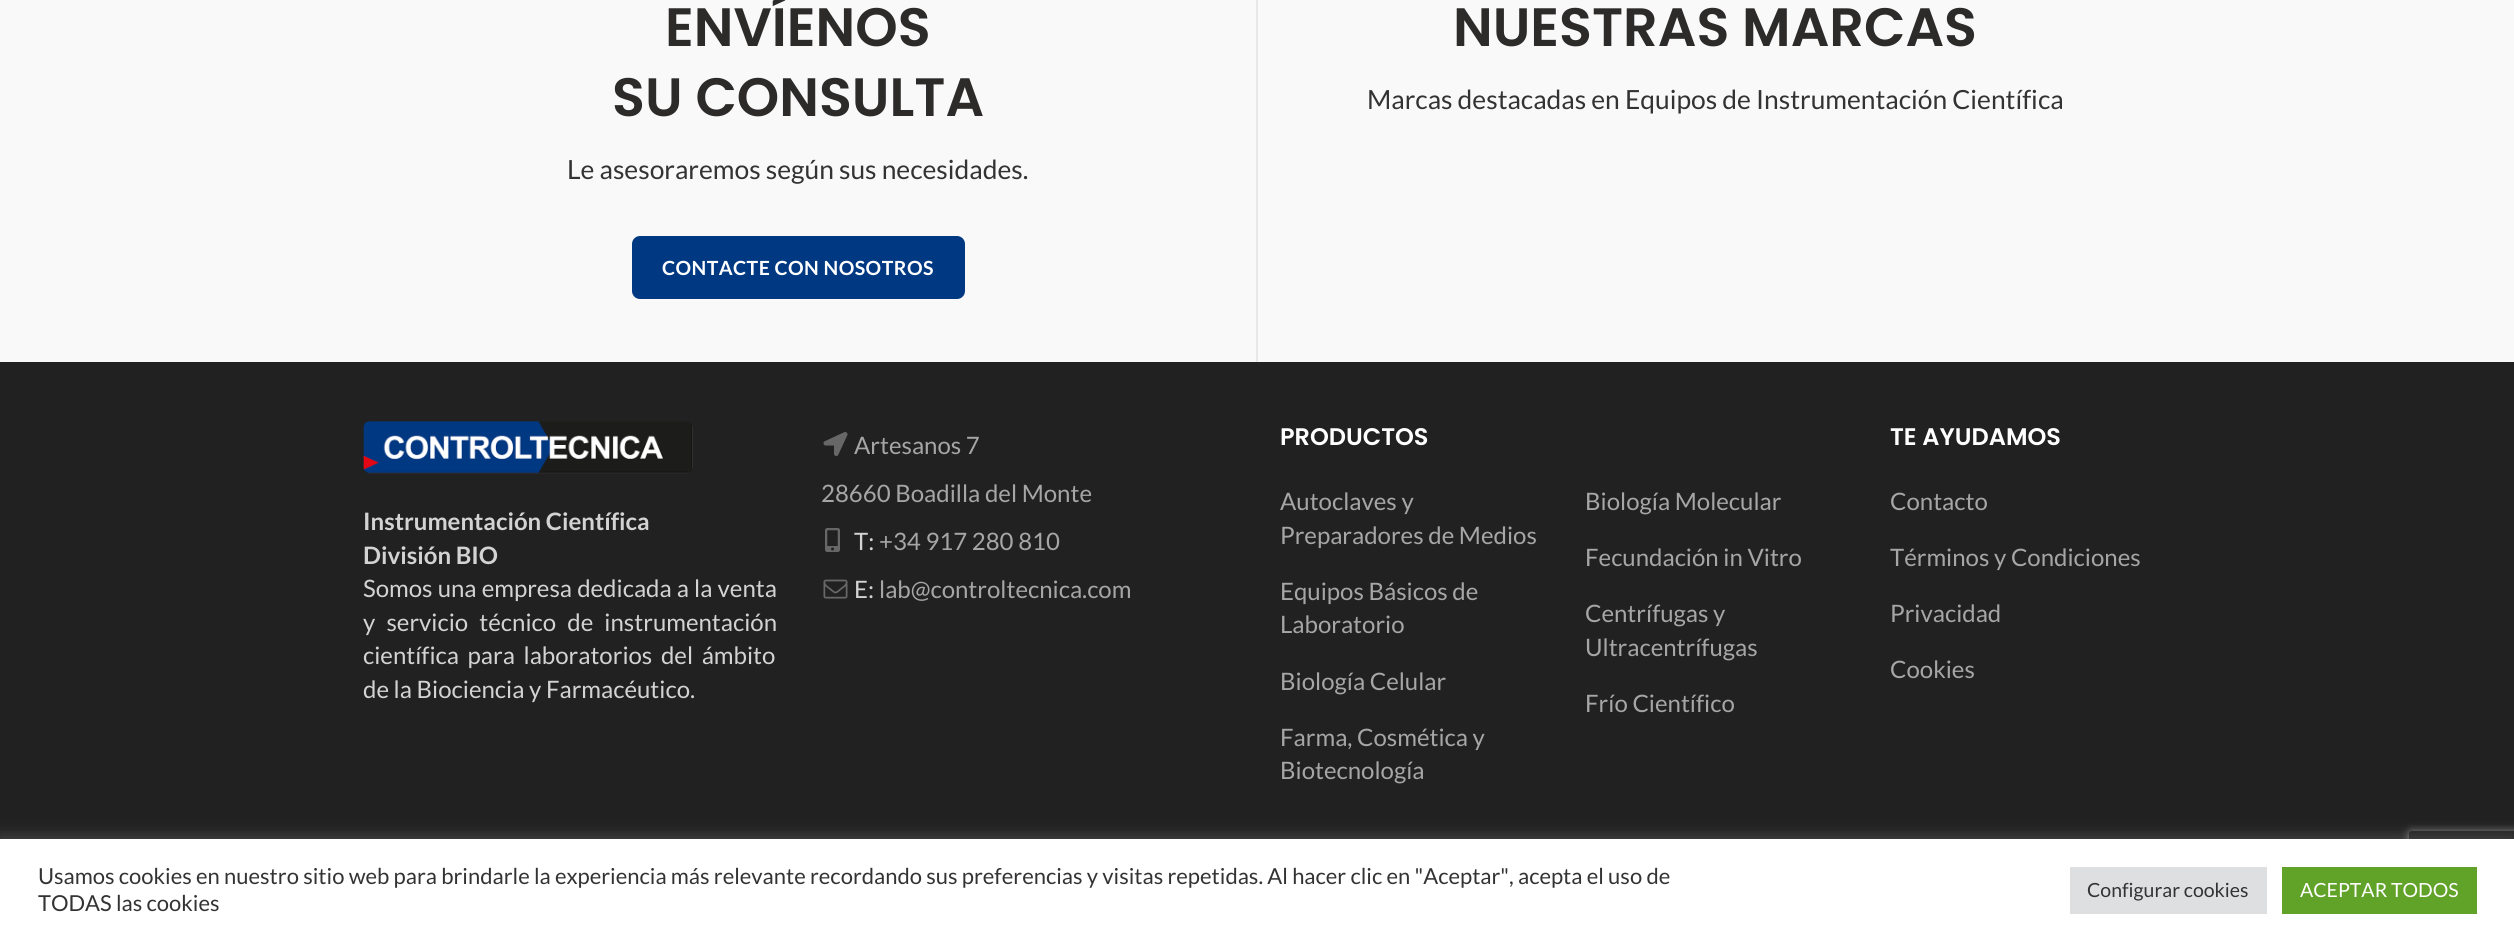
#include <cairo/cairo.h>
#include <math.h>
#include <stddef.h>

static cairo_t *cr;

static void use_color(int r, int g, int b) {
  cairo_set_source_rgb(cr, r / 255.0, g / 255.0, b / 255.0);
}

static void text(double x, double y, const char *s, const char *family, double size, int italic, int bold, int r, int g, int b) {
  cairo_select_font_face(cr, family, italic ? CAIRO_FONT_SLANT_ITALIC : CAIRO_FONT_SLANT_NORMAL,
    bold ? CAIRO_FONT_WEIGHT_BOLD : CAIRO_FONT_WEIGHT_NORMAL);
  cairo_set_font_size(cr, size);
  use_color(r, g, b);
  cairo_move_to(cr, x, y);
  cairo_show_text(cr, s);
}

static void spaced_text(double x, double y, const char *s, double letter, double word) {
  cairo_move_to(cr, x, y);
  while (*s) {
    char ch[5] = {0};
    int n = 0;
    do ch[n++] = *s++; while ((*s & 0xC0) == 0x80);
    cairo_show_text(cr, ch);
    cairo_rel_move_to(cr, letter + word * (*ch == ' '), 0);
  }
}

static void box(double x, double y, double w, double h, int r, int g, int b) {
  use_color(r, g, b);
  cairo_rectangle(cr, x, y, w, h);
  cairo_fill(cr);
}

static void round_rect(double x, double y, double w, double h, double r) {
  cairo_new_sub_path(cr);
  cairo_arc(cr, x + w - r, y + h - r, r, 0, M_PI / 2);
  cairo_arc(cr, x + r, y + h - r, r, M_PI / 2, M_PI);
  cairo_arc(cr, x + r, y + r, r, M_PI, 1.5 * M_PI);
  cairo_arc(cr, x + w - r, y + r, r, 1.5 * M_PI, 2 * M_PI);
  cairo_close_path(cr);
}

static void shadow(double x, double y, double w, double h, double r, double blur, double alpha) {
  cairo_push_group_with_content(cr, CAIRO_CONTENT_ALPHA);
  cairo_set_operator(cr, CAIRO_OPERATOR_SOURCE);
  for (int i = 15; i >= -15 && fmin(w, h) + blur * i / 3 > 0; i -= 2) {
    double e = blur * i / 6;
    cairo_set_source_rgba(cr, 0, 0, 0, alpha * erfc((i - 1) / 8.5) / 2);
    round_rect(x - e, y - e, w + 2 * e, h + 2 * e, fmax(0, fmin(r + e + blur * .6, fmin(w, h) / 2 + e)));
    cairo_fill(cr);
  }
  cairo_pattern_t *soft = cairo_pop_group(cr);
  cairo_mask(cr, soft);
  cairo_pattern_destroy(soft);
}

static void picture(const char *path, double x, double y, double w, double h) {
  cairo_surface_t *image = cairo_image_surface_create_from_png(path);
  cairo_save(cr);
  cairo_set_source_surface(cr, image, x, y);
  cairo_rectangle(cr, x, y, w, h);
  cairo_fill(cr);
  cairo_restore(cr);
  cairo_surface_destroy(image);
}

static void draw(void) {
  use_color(33, 33, 33);
  cairo_paint(cr);
  box(0, 0, 2514, 362, 249, 249, 249);
  box(1256, 0, 2, 362, 232, 232, 232);
  use_color(0, 56, 130);
  round_rect(632, 236, 333, 63, 8);
  cairo_fill(cr);
  picture("img_01.png", 363, 421, 330, 53);
  picture("img_02.png", 823, 432, 25, 24);
  picture("img_03.png", 825, 528, 15, 24);
  picture("img_04.png", 823, 579, 25, 20);
  cairo_save(cr);
  cairo_set_fill_rule(cr, CAIRO_FILL_RULE_EVEN_ODD);
  cairo_new_path(cr);
  cairo_move_to(cr, 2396, 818);
  cairo_line_to(cr, 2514, 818);
  cairo_line_to(cr, 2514, 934);
  cairo_line_to(cr, 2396, 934);
  cairo_close_path(cr);
  cairo_move_to(cr, 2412, 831);
  cairo_line_to(cr, 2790, 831);
  cairo_curve_to(cr, 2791.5, 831, 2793, 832.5, 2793, 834);
  cairo_line_to(cr, 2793, 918);
  cairo_curve_to(cr, 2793, 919.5, 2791.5, 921, 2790, 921);
  cairo_line_to(cr, 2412, 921);
  cairo_curve_to(cr, 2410.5, 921, 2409, 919.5, 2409, 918);
  cairo_line_to(cr, 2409, 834);
  cairo_curve_to(cr, 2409, 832.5, 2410.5, 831, 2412, 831);
  cairo_close_path(cr);
  cairo_clip(cr);
  use_color(128, 128, 128);
  shadow(2409, 831, 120, 90, 3, 4, 1);
  cairo_restore(cr);
  use_color(172, 171, 171);
  shadow(0, 837, 2514, 104, 0, 7.5, 0.3);
  box(0, 839, 2514, 103, 255, 255, 255);
  box(2070, 867, 197, 47, 222, 223, 224);
  box(2282, 867, 195, 47, 97, 162, 41);
  text(665, 46, "ENVÍENOS", "Poppins SemiBold", 54, 0, 0, 45, 42, 42);
  text(612, 116, "SU CONSULTA", "Poppins SemiBold", 54, 0, 0, 45, 42, 42);
  text(567, 179, "Le asesoraremos según sus necesidades.", "Lato", 26.4, 0, 0, 51, 51, 51);
  cairo_select_font_face(cr, "Lato", CAIRO_FONT_SLANT_NORMAL, CAIRO_FONT_WEIGHT_BOLD);
  cairo_set_font_size(cr, 19.5);
  use_color(255, 255, 255);
  spaced_text(662, 275, "CONTACTE CON NOSOTROS", 0.45, 0);
  text(1453, 46, "NUESTRAS MARCAS", "Poppins SemiBold", 54, 0, 0, 45, 42, 42);
  text(1367, 109, "Marcas destacadas en Equipos de Instrumentación Científica", "Lato", 26.4, 0, 0, 51, 51, 51);
  text(363, 530, "Instrumentación Científica", "Lato", 24, 0, 1, 211, 211, 211);
  text(363, 564, "División BIO", "Lato", 24, 0, 1, 211, 211, 211);
  cairo_select_font_face(cr, "Lato", CAIRO_FONT_SLANT_NORMAL, CAIRO_FONT_WEIGHT_NORMAL);
  spaced_text(363, 597, "Somos una empresa dedicada a la venta", 0, 0.5);
  spaced_text(363, 631, "y servicio técnico de instrumentación", 0, 6.5);
  spaced_text(363, 664, "científica para laboratorios del ámbito", 0, 4);
  text(363, 698, "de la Biociencia y Farmacéutico.", "Lato", 24, 0, 0, 211, 211, 211);
  text(854, 454, "Artesanos 7", "Lato", 24, 0, 0, 166, 166, 166);
  text(821, 502, "28660 Boadilla del Monte", "Lato", 24, 0, 0, 166, 166, 166);
  text(854, 550, "T:", "Lato", 24, 0, 0, 211, 211, 211);
  text(879, 550, "+34 917 280 810", "Lato", 24, 0, 0, 166, 166, 166);
  text(854, 598, "E:", "Lato", 24, 0, 0, 211, 211, 211);
  text(879, 598, "lab@controltecnica.com", "Lato", 24, 0, 0, 166, 166, 166);
  text(1280, 445, "PRODUCTOS", "Poppins SemiBold", 24, 0, 0, 255, 255, 255);
  text(1280, 510, "Autoclaves y", "Lato", 24, 0, 0, 166, 166, 166);
  text(1280, 544, "Preparadores de Medios", "Lato", 24, 0, 0, 166, 166, 166);
  text(1280, 600, "Equipos Básicos de", "Lato", 24, 0, 0, 166, 166, 166);
  text(1280, 633, "Laboratorio", "Lato", 24, 0, 0, 166, 166, 166);
  text(1280, 690, "Biología Celular", "Lato", 24, 0, 0, 166, 166, 166);
  text(1280, 746, "Farma, Cosmética y", "Lato", 24, 0, 0, 166, 166, 166);
  text(1280, 779, "Biotecnología", "Lato", 24, 0, 0, 166, 166, 166);
  text(1585, 510, "Biología Molecular", "Lato", 24, 0, 0, 166, 166, 166);
  text(1585, 566, "Fecundación in Vitro", "Lato", 24, 0, 0, 166, 166, 166);
  text(1585, 622, "Centrífugas y", "Lato", 24, 0, 0, 166, 166, 166);
  text(1585, 656, "Ultracentrífugas", "Lato", 24, 0, 0, 166, 166, 166);
  text(1585, 712, "Frío Científico", "Lato", 24, 0, 0, 166, 166, 166);
  text(1890, 445, "TE AYUDAMOS", "Poppins SemiBold", 24, 0, 0, 255, 255, 255);
  text(1890, 510, "Contacto", "Lato", 24, 0, 0, 166, 166, 166);
  text(1890, 566, "Términos y Condiciones", "Lato", 24, 0, 0, 166, 166, 166);
  text(1890, 622, "Privacidad", "Lato", 24, 0, 0, 166, 166, 166);
  text(1890, 678, "Cookies", "Lato", 24, 0, 0, 166, 166, 166);
  text(38, 884, "Usamos cookies en nuestro sitio web para brindarle la experiencia más relevante recordando sus preferencias y visitas repetidas. Al hacer clic en \"Aceptar\", acepta el uso de", "Lato", 22, 0, 0, 51, 51, 51);
  text(38, 911, "TODAS las cookies", "Lato", 22, 0, 0, 51, 51, 51);
  text(2087, 897, "Configurar cookies", "Lato", 19.5, 0, 0, 51, 51, 51);
  text(2300, 897, "ACEPTAR TODOS", "Lato", 19.5, 0, 0, 255, 255, 255);
}

int main(void) {
  cairo_surface_t *surface = cairo_image_surface_create(CAIRO_FORMAT_RGB24, 2514, 942);
  cr = cairo_create(surface);
  cairo_font_options_t *options = cairo_font_options_create();
  cairo_font_options_set_hint_metrics(options, CAIRO_HINT_METRICS_OFF);
  cairo_font_options_set_hint_style(options, CAIRO_HINT_STYLE_NONE);
  cairo_set_font_options(cr, options);
  cairo_set_miter_limit(cr, 4);
  draw();
  cairo_surface_write_to_png(surface, "out.png");
  cairo_font_options_destroy(options);
  cairo_destroy(cr);
  cairo_surface_destroy(surface);
  return 0;
}
